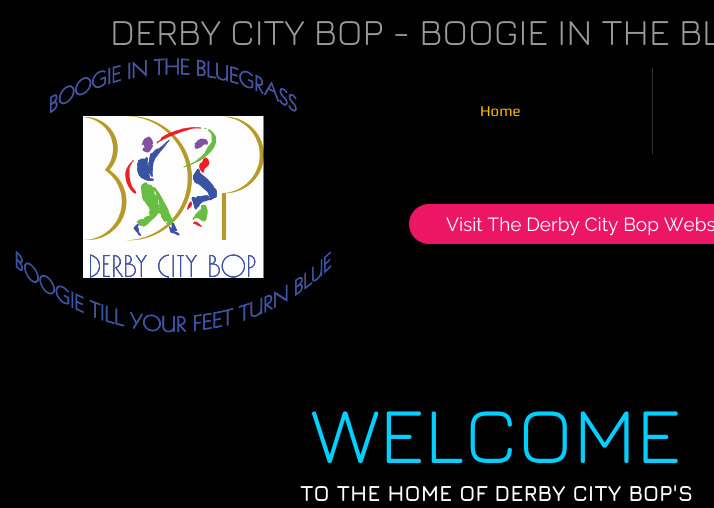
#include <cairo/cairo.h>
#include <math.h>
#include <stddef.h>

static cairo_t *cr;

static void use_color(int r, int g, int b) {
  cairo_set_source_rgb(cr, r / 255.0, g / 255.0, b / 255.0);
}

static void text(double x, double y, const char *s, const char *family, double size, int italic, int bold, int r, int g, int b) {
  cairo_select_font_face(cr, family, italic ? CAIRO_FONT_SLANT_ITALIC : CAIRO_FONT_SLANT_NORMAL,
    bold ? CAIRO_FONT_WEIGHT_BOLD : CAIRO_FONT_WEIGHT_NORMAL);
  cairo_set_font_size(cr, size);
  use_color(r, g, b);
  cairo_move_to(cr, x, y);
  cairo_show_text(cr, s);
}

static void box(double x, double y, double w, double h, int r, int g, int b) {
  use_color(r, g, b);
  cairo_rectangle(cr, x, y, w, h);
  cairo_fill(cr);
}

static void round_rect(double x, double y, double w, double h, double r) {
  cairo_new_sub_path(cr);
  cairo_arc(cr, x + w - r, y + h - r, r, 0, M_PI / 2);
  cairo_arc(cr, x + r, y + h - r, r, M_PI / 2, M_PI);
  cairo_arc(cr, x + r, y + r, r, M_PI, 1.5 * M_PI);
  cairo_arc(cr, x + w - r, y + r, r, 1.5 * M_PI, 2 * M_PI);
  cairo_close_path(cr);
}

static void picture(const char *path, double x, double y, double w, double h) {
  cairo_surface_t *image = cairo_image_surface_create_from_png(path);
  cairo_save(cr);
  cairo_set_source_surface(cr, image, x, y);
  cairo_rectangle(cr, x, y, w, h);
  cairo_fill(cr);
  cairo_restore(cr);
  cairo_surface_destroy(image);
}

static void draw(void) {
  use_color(0, 0, 0);
  cairo_paint(cr);
  picture("img_01.png", 15, 58, 317, 275);
  box(652, 68, 1, 86, 51, 51, 51);
  use_color(237, 21, 102);
  round_rect(409, 204, 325, 40, 20);
  cairo_fill(cr);
  text(110, 45, "DERBY CITY BOP - BOOGIE IN THE BL", "Jura", 37, 0, 0, 153, 153, 153);
  text(480, 116, "Home", "Play", 15, 0, 0, 255, 187, 0);
  text(446, 231, "Visit The Derby City Bop Webs", "Raleway", 19, 0, 0, 255, 255, 255);
  text(311, 463, "WELCOME", "Jura", 80, 0, 0, 0, 208, 255);
  text(300, 501, "TO THE HOME OF DERBY CITY BOP'S", "Jura", 22, 0, 1, 255, 255, 255);
}

int main(void) {
  cairo_surface_t *surface = cairo_image_surface_create(CAIRO_FORMAT_RGB24, 714, 508);
  cr = cairo_create(surface);
  cairo_font_options_t *options = cairo_font_options_create();
  cairo_font_options_set_hint_metrics(options, CAIRO_HINT_METRICS_OFF);
  cairo_font_options_set_hint_style(options, CAIRO_HINT_STYLE_NONE);
  cairo_set_font_options(cr, options);
  cairo_set_miter_limit(cr, 4);
  draw();
  cairo_surface_write_to_png(surface, "out.png");
  cairo_font_options_destroy(options);
  cairo_destroy(cr);
  cairo_surface_destroy(surface);
  return 0;
}
